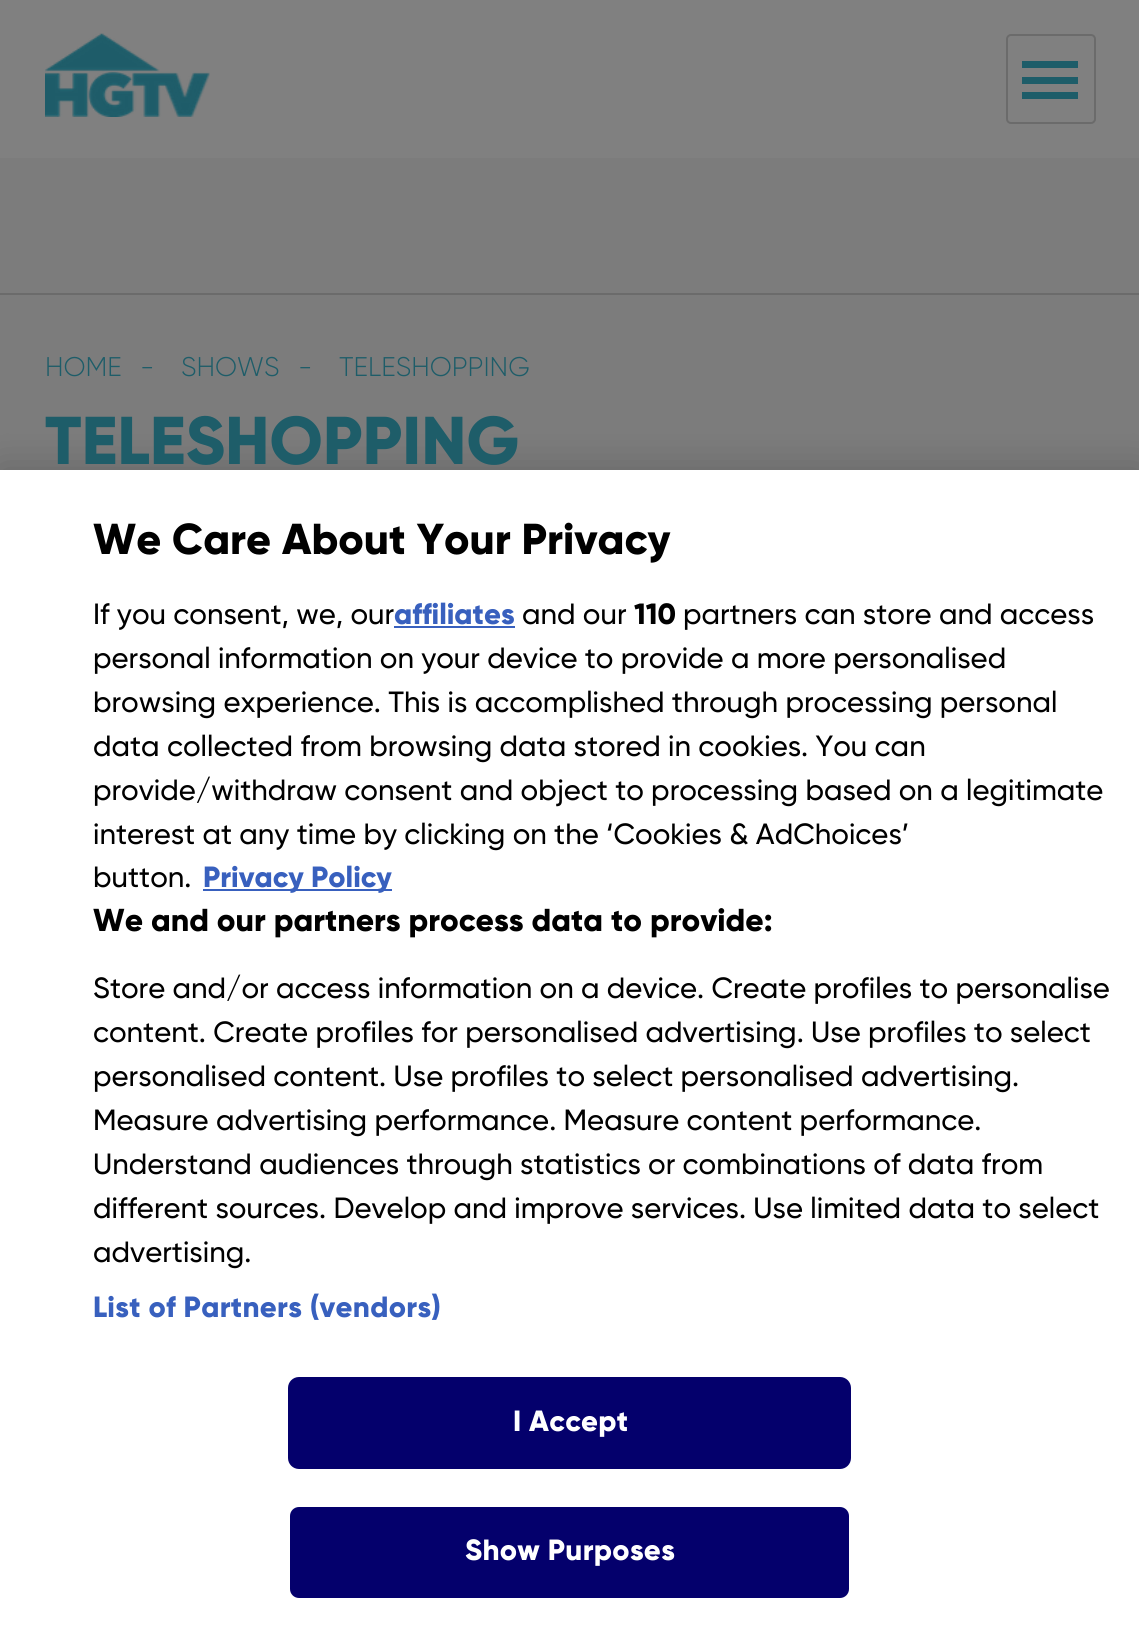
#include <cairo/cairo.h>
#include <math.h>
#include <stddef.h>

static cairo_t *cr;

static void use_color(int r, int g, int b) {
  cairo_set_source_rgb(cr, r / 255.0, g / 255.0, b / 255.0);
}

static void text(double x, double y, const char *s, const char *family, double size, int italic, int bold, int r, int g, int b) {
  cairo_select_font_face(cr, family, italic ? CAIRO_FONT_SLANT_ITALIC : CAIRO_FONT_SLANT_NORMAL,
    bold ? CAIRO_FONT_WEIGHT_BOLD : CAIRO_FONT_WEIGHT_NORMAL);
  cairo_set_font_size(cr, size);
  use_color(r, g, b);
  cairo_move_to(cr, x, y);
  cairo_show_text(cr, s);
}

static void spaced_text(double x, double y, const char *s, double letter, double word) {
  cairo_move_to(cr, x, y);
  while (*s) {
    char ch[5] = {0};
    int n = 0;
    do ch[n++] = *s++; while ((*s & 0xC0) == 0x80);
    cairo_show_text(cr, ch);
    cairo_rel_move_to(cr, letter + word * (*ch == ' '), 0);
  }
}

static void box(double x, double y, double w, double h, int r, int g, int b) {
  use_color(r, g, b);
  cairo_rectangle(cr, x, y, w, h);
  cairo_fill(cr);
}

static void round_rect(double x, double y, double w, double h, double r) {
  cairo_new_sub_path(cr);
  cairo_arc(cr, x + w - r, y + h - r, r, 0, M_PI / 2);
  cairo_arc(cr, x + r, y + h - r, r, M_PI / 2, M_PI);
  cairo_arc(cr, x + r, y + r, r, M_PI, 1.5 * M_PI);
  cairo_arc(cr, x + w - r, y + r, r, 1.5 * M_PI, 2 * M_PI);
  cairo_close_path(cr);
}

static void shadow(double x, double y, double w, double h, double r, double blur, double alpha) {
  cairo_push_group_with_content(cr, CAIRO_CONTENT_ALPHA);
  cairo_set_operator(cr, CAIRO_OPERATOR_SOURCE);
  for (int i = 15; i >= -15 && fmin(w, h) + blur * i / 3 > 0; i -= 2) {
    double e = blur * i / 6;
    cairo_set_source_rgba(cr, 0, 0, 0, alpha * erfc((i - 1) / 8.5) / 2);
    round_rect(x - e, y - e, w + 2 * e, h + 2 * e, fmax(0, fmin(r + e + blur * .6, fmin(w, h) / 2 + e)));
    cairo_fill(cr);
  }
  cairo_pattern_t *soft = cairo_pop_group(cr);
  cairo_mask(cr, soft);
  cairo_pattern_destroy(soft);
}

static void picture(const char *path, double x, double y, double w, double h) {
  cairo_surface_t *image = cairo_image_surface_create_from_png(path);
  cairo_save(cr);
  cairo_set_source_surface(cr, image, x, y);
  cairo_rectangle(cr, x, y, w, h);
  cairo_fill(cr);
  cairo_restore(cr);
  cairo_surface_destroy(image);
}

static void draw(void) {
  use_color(124, 124, 124);
  cairo_paint(cr);
  box(0, 0, 1139, 158, 128, 128, 128);
  picture("img_01.png", 45, 33, 165, 84);
  round_rect(1007, 35, 88, 88, 4);
  use_color(107, 107, 107);
  cairo_stroke(cr);
  box(1022, 61, 56, 7, 30, 93, 105);
  box(1022, 77, 56, 7, 30, 93, 105);
  box(1022, 92, 56, 7, 30, 93, 105);
  box(0, 293, 1139, 2, 107, 107, 107);
  use_color(0, 0, 0);
  shadow(0, 470, 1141, 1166, 0, 20, 0.2);
  box(0, 470, 1139, 1165, 255, 255, 255);
  box(394, 626, 121, 2, 56, 96, 190);
  box(203, 889, 189, 2, 56, 96, 190);
  use_color(4, 0, 108);
  round_rect(289, 1378, 561, 90, 10);
  cairo_fill_preserve(cr);
  cairo_stroke(cr);
  round_rect(289, 1506, 561, 93, 10);
  cairo_fill_preserve(cr);
  use_color(255, 255, 255);
  cairo_stroke(cr);
  text(45, 376, "HOME", "Gilroy Light", 27, 0, 0, 30, 93, 105);
  text(140, 376, "-", "Gilroy Light", 27, 0, 0, 30, 93, 105);
  text(181, 376, "SHOWS", "Gilroy Light", 27, 0, 0, 30, 93, 105);
  text(298, 376, "-", "Gilroy Light", 27, 0, 0, 30, 93, 105);
  text(339, 376, "TELESHOPPING", "Gilroy Light", 27, 0, 0, 30, 93, 105);
  text(45, 464, "TELESHOPPING", "Gilroy ExtraBold", 67.5, 0, 0, 30, 93, 105);
  text(93, 554, "We Care About Your Privacy", "Gilroy ExtraBold", 43.25, 0, 0, 0, 0, 0);
  text(93, 624, "If you consent, we, our", "Gilroy Medium", 29.25, 0, 0, 0, 0, 0);
  text(394, 624, "affiliates", "Gilroy ExtraBold", 29.25, 0, 0, 56, 96, 190);
  text(522, 624, "and our", "Gilroy Medium", 29.25, 0, 0, 0, 0, 0);
  text(634, 624, "110", "Gilroy ExtraBold", 29.25, 0, 0, 0, 0, 0);
  text(683, 624, "partners can store and access", "Gilroy Medium", 29.25, 0, 0, 0, 0, 0);
  text(93, 668, "personal information on your device to provide a more personalised", "Gilroy Medium", 29.25, 0, 0, 0, 0, 0);
  text(93, 712, "browsing experience. This is accomplished through processing personal", "Gilroy Medium", 29.25, 0, 0, 0, 0, 0);
  text(93, 756, "data collected from browsing data stored in cookies. You can", "Gilroy Medium", 29.25, 0, 0, 0, 0, 0);
  text(93, 800, "provide/withdraw consent and object to processing based on a legitimate", "Gilroy Medium", 29.25, 0, 0, 0, 0, 0);
  text(93, 844, "interest at any time by clicking on the ‘Cookies & AdChoices’", "Gilroy Medium", 29.25, 0, 0, 0, 0, 0);
  text(93, 887, "button.", "Gilroy Medium", 29.25, 0, 0, 0, 0, 0);
  text(203, 887, "Privacy Policy", "Gilroy ExtraBold", 29.25, 0, 0, 56, 96, 190);
  text(93, 931, "We and our partners process data to provide:", "Gilroy ExtraBold", 31.7, 0, 0, 0, 0, 0);
  text(93, 998, "Store and/or access information on a device. Create profiles to personalise", "Gilroy Medium", 29.25, 0, 0, 0, 0, 0);
  text(93, 1042, "content. Create profiles for personalised advertising. Use profiles to select", "Gilroy Medium", 29.25, 0, 0, 0, 0, 0);
  text(93, 1086, "personalised content. Use profiles to select personalised advertising.", "Gilroy Medium", 29.25, 0, 0, 0, 0, 0);
  text(93, 1130, "Measure advertising performance. Measure content performance.", "Gilroy Medium", 29.25, 0, 0, 0, 0, 0);
  text(93, 1174, "Understand audiences through statistics or combinations of data from", "Gilroy Medium", 29.25, 0, 0, 0, 0, 0);
  text(93, 1218, "different sources. Develop and improve services. Use limited data to select", "Gilroy Medium", 29.25, 0, 0, 0, 0, 0);
  text(93, 1262, "advertising.", "Gilroy Medium", 29.25, 0, 0, 0, 0, 0);
  cairo_select_font_face(cr, "Gilroy ExtraBold", CAIRO_FONT_SLANT_NORMAL, CAIRO_FONT_WEIGHT_NORMAL);
  use_color(56, 96, 190);
  spaced_text(93, 1317, "List of Partners (vendors)", 0.3, 0);
  use_color(255, 255, 255);
  spaced_text(513, 1431, "I Accept", 0.3, 0);
  spaced_text(465, 1560, "Show Purposes", 0.3, 0);
}

int main(void) {
  cairo_surface_t *surface = cairo_image_surface_create(CAIRO_FORMAT_RGB24, 1139, 1635);
  cr = cairo_create(surface);
  cairo_font_options_t *options = cairo_font_options_create();
  cairo_font_options_set_hint_metrics(options, CAIRO_HINT_METRICS_OFF);
  cairo_font_options_set_hint_style(options, CAIRO_HINT_STYLE_NONE);
  cairo_set_font_options(cr, options);
  cairo_set_miter_limit(cr, 4);
  draw();
  cairo_surface_write_to_png(surface, "out.png");
  cairo_font_options_destroy(options);
  cairo_destroy(cr);
  cairo_surface_destroy(surface);
  return 0;
}
